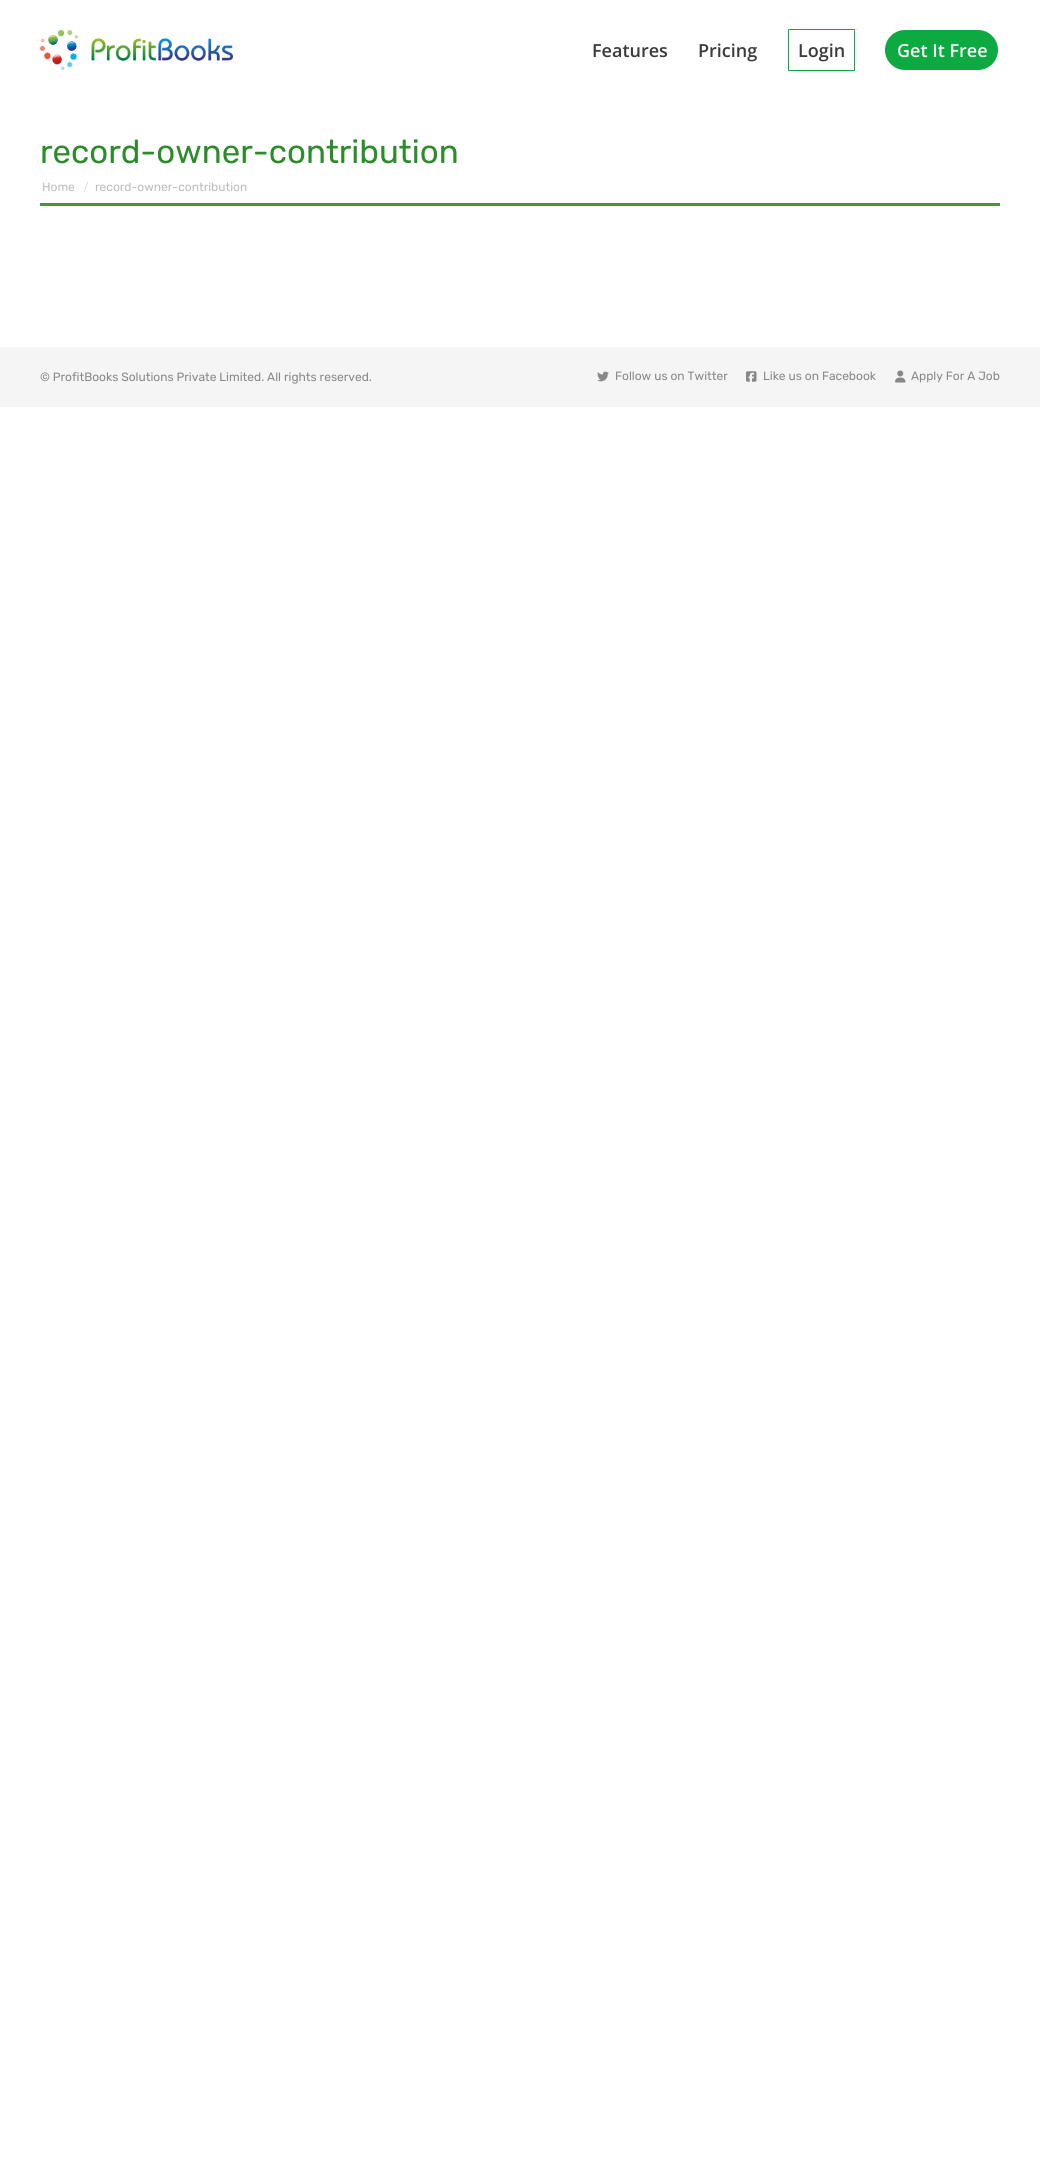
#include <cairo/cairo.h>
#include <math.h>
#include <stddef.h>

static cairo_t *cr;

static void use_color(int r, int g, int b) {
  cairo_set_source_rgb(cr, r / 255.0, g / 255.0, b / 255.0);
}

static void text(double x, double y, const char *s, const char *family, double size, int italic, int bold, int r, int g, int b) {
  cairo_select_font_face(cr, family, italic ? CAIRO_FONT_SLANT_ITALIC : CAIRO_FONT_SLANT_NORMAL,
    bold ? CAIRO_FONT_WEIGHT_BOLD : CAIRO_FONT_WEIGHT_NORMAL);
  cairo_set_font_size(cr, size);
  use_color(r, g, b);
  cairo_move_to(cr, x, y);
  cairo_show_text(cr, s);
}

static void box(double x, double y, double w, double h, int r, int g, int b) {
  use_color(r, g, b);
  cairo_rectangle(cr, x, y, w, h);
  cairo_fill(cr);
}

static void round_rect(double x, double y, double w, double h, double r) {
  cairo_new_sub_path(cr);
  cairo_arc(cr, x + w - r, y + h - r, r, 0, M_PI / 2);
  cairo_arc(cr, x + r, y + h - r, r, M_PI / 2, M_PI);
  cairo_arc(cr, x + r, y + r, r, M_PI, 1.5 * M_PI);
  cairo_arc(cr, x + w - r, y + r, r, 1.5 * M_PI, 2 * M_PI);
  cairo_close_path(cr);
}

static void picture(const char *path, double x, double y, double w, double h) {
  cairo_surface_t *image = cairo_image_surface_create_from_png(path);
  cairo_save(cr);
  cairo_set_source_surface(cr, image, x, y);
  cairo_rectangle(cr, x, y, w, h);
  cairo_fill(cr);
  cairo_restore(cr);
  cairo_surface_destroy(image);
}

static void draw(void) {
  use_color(255, 255, 255);
  cairo_paint(cr);
  picture("img_01.png", 40, 30, 193, 40);
  round_rect(788.5, 29.5, 66, 41, 0.5);
  use_color(12, 170, 65);
  cairo_set_line_width(cr, 1);
  cairo_stroke(cr);
  round_rect(885, 30, 113, 40, 20);
  cairo_fill(cr);
  box(40, 203, 960, 3, 77, 150, 40);
  box(0, 347, 1040, 60, 245, 245, 245);
  picture("img_02.png", 597, 371, 12, 11);
  picture("img_03.png", 746, 371, 11, 11);
  picture("img_04.png", 895, 370, 11, 13);
  text(592, 57, "Features", "Open Sans SemiBold", 18, 0, 0, 58, 58, 58);
  text(698, 57, "Pricing", "Open Sans SemiBold", 18, 0, 0, 58, 58, 58);
  text(798, 57, "Login", "Open Sans SemiBold", 18, 0, 0, 58, 58, 58);
  text(897, 57, "Get It Free", "Open Sans SemiBold", 18, 0, 0, 248, 248, 248);
  text(40, 163, "record-owner-contribution", "Rubik", 33, 0, 0, 45, 140, 42);
  text(42, 191, "Home", "Rubik", 12, 0, 0, 188, 188, 188);
  text(83, 191, "/", "Rubik", 12, 0, 0, 222, 222, 222);
  text(95, 191, "record-owner-contribution", "Rubik", 12, 0, 0, 188, 188, 188);
  text(40, 381, "© ProfitBooks Solutions Private Limited. All rights reserved.", "Rubik", 12, 0, 0, 136, 136, 136);
  text(615, 380, "Follow us on Twitter", "Rubik", 12, 0, 0, 136, 136, 136);
  text(763, 380, "Like us on Facebook", "Rubik", 12, 0, 0, 136, 136, 136);
  text(911, 380, "Apply For A Job", "Rubik", 12, 0, 0, 136, 136, 136);
}

int main(void) {
  cairo_surface_t *surface = cairo_image_surface_create(CAIRO_FORMAT_RGB24, 1040, 2167);
  cr = cairo_create(surface);
  cairo_font_options_t *options = cairo_font_options_create();
  cairo_font_options_set_hint_metrics(options, CAIRO_HINT_METRICS_OFF);
  cairo_font_options_set_hint_style(options, CAIRO_HINT_STYLE_NONE);
  cairo_set_font_options(cr, options);
  cairo_set_miter_limit(cr, 4);
  draw();
  cairo_surface_write_to_png(surface, "out.png");
  cairo_font_options_destroy(options);
  cairo_destroy(cr);
  cairo_surface_destroy(surface);
  return 0;
}
